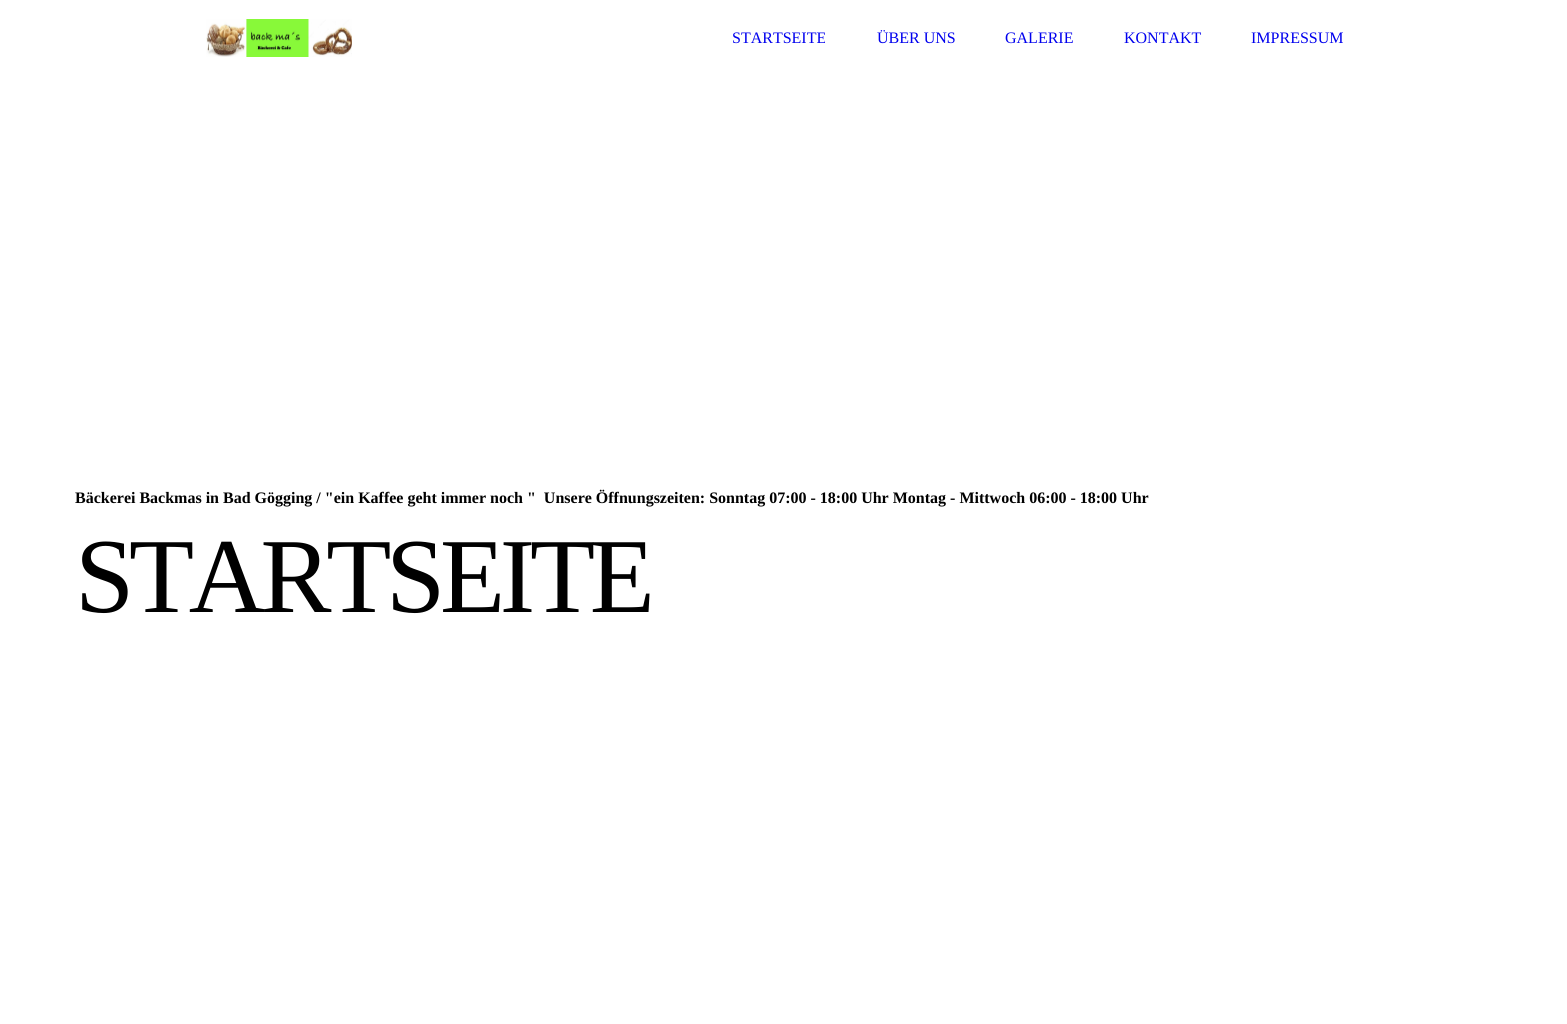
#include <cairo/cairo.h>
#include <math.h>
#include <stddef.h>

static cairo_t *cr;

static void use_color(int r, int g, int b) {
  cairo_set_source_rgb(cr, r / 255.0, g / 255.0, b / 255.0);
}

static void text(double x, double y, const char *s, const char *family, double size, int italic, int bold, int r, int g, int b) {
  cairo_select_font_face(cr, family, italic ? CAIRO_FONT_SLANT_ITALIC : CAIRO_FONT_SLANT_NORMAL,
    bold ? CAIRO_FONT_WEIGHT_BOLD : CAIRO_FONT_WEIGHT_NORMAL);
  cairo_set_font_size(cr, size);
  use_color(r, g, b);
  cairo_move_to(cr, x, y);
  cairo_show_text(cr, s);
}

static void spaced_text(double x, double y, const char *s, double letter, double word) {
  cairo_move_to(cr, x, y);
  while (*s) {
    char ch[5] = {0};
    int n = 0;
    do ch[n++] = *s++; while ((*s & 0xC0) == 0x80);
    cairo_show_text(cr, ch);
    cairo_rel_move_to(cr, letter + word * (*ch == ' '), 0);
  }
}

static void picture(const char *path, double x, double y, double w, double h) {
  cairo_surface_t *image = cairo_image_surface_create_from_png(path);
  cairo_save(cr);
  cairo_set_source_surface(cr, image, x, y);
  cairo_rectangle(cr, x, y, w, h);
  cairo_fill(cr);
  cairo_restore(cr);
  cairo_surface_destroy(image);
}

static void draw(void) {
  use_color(255, 255, 255);
  cairo_paint(cr);
  picture("img_01.png", 206, 19, 146, 38);
  text(732, 43, "STARTSEITE", "Liberation Serif", 16, 0, 0, 0, 0, 238);
  text(877, 43, "ÜBER UNS", "Liberation Serif", 16, 0, 0, 0, 0, 238);
  text(1005, 43, "GALERIE", "Liberation Serif", 16, 0, 0, 0, 0, 238);
  text(1124, 43, "KONTAKT", "Liberation Serif", 16, 0, 0, 0, 0, 238);
  text(1251, 43, "IMPRESSUM", "Liberation Serif", 16, 0, 0, 0, 0, 238);
  text(75, 503, "Bäckerei Backmas in Bad Gögging / \"ein Kaffee geht immer noch \"  Unsere Öffnungszeiten: Sonntag 07:00 - 18:00 Uhr Montag - Mittwoch 06:00 - 18:00 Uhr", "Liberation Serif", 16, 0, 1, 0, 0, 0);
  cairo_select_font_face(cr, "Liberation Serif", CAIRO_FONT_SLANT_NORMAL, CAIRO_FONT_WEIGHT_NORMAL);
  cairo_set_font_size(cr, 106.5);
  spaced_text(75, 612, "STARTSEITE", -5.25, 0);
}

int main(void) {
  cairo_surface_t *surface = cairo_image_surface_create(CAIRO_FORMAT_RGB24, 1567, 1024);
  cr = cairo_create(surface);
  cairo_font_options_t *options = cairo_font_options_create();
  cairo_font_options_set_hint_metrics(options, CAIRO_HINT_METRICS_OFF);
  cairo_font_options_set_hint_style(options, CAIRO_HINT_STYLE_NONE);
  cairo_set_font_options(cr, options);
  cairo_set_miter_limit(cr, 4);
  draw();
  cairo_surface_write_to_png(surface, "out.png");
  cairo_font_options_destroy(options);
  cairo_destroy(cr);
  cairo_surface_destroy(surface);
  return 0;
}
